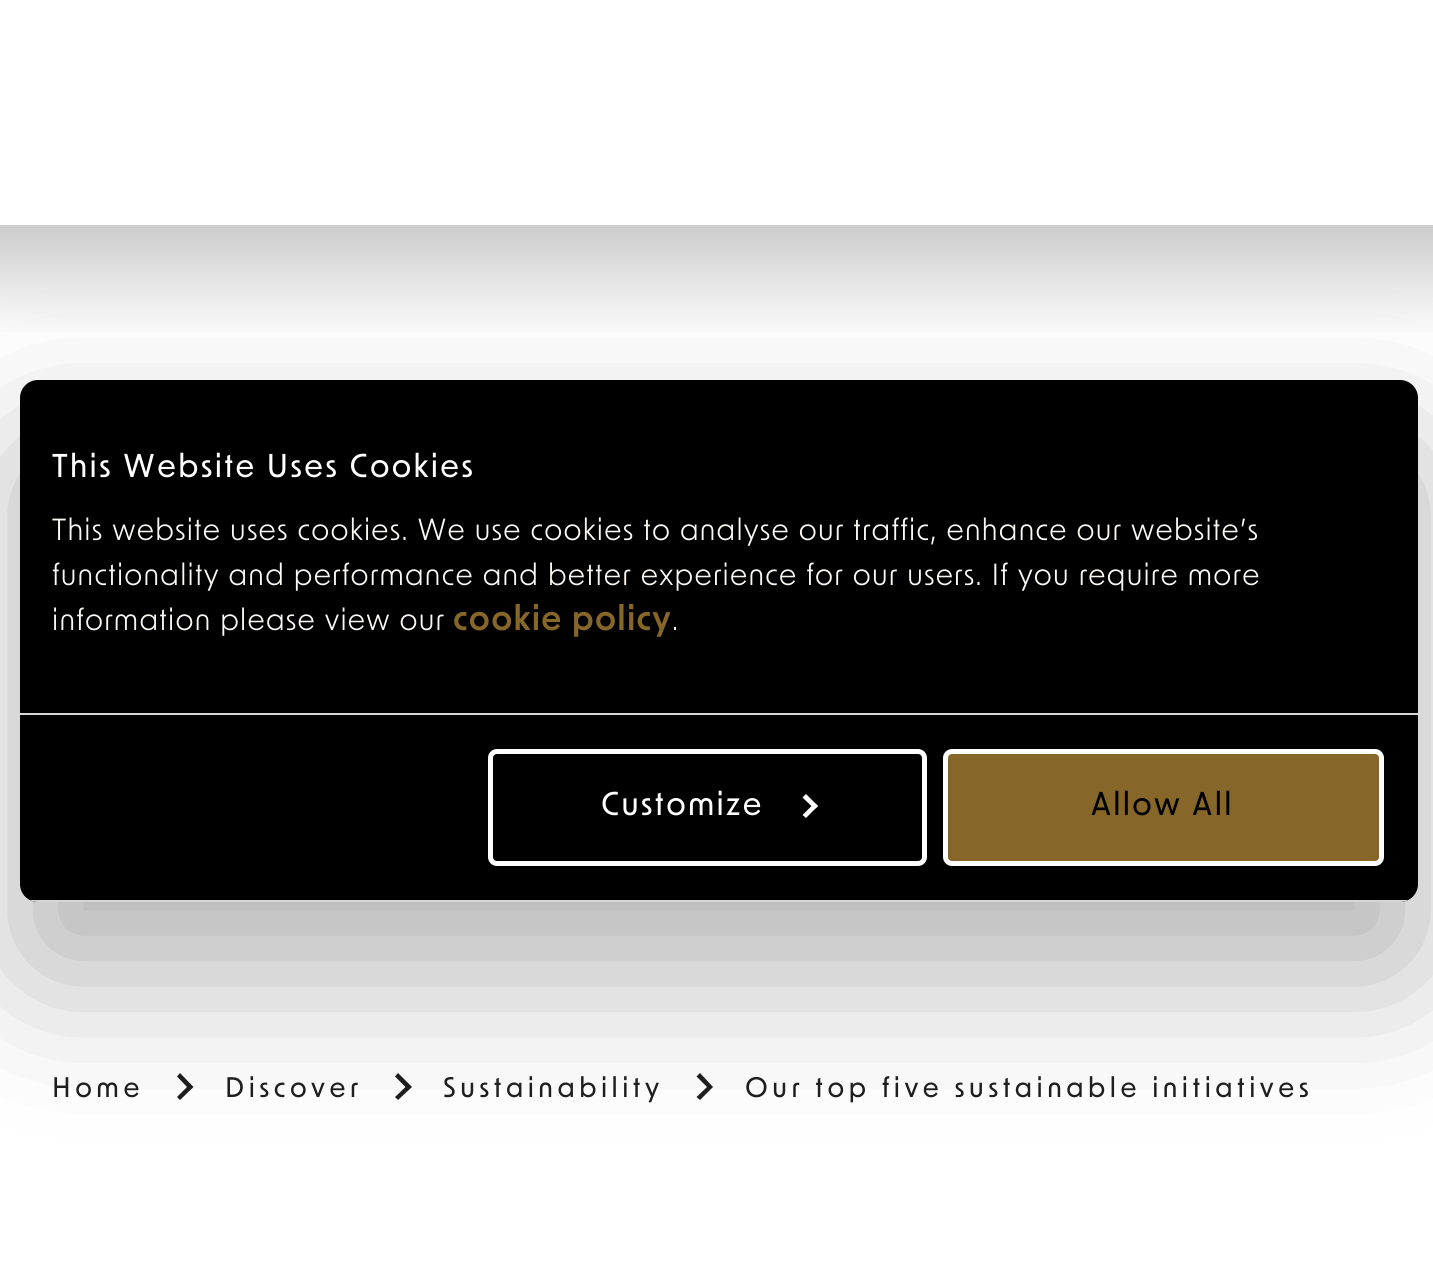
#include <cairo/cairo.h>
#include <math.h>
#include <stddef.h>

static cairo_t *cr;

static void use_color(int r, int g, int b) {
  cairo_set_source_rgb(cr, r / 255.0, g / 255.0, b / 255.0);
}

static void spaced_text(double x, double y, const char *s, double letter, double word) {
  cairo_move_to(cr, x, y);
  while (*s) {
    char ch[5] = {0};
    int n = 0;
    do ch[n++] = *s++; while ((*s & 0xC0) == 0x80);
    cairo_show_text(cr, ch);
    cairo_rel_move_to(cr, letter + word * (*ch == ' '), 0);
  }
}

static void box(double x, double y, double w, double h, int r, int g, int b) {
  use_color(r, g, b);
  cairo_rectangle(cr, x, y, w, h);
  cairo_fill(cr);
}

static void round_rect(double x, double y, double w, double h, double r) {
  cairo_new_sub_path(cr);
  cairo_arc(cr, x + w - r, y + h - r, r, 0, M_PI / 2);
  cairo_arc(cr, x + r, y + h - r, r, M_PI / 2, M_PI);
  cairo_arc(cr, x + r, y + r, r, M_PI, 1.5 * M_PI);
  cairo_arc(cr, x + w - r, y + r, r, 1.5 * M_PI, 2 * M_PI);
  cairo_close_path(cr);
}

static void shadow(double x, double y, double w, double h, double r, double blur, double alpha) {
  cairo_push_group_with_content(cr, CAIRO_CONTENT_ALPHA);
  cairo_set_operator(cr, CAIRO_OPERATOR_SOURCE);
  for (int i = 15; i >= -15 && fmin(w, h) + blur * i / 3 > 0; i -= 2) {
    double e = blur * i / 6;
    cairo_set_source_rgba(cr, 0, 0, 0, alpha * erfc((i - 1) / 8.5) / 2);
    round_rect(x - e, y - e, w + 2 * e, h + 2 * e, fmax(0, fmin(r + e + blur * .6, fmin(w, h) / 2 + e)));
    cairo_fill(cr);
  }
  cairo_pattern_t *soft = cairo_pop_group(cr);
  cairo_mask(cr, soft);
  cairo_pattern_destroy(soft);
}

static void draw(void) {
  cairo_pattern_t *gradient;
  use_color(255, 255, 255);
  cairo_paint(cr);
  gradient = cairo_pattern_create_linear(717, 0, 717, 338);
  cairo_pattern_add_color_stop_rgba(gradient, 0, 0.4, 0.4, 0.4, 1);
  cairo_pattern_add_color_stop_rgba(gradient, 1, 1, 1, 1, 1);
  cairo_set_source(cr, gradient);
  cairo_pattern_destroy(gradient);
  cairo_rectangle(cr, 0, 225, 1433, 107);
  cairo_fill(cr);
  use_color(30, 30, 30);
  cairo_new_path(cr);
  cairo_move_to(cr, 180, 1073);
  cairo_line_to(cr, 177, 1076.5);
  cairo_line_to(cr, 187, 1087);
  cairo_line_to(cr, 177, 1097);
  cairo_line_to(cr, 180, 1100);
  cairo_line_to(cr, 193.5, 1087);
  cairo_close_path(cr);
  cairo_fill(cr);
  cairo_new_path(cr);
  cairo_move_to(cr, 398, 1073);
  cairo_line_to(cr, 395, 1076.5);
  cairo_line_to(cr, 405.5, 1087);
  cairo_line_to(cr, 395, 1097);
  cairo_line_to(cr, 398, 1100);
  cairo_line_to(cr, 412, 1087);
  cairo_close_path(cr);
  cairo_fill(cr);
  cairo_new_path(cr);
  cairo_move_to(cr, 700, 1073);
  cairo_line_to(cr, 696.5, 1076.5);
  cairo_line_to(cr, 707, 1087);
  cairo_line_to(cr, 696.5, 1097);
  cairo_line_to(cr, 700, 1100);
  cairo_line_to(cr, 713, 1087);
  cairo_close_path(cr);
  cairo_fill(cr);
  use_color(0, 0, 0);
  shadow(20, 452, 1398, 522, 18, 76.5, 0.3);
  use_color(0, 0, 0);
  round_rect(20, 380, 1398, 522, 18);
  cairo_fill(cr);
  box(20, 713, 1398, 2, 214, 214, 214);
  cairo_save(cr);
  round_rect(20, 380, 1398, 522, 18);
  cairo_clip(cr);
  box(30, 900, 1378, 2, 214, 214, 214);
  cairo_restore(cr);
  round_rect(490.5, 751.5, 434, 112, 6.5);
  use_color(255, 255, 255);
  cairo_set_line_width(cr, 5);
  cairo_stroke(cr);
  cairo_new_path(cr);
  cairo_move_to(cr, 806, 794);
  cairo_line_to(cr, 818, 806);
  cairo_line_to(cr, 814.5, 809);
  cairo_line_to(cr, 802.5, 797.5);
  cairo_close_path(cr);
  cairo_fill(cr);
  cairo_new_path(cr);
  cairo_move_to(cr, 814.5, 803);
  cairo_line_to(cr, 818, 806);
  cairo_line_to(cr, 806, 818);
  cairo_line_to(cr, 802.5, 815);
  cairo_close_path(cr);
  cairo_fill(cr);
  use_color(135, 103, 41);
  round_rect(945.5, 751.5, 436, 112, 6.5);
  cairo_fill_preserve(cr);
  use_color(255, 255, 255);
  cairo_stroke(cr);
  cairo_select_font_face(cr, "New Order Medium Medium", CAIRO_FONT_SLANT_NORMAL, CAIRO_FONT_WEIGHT_NORMAL);
  cairo_set_font_size(cr, 31.5);
  spaced_text(52, 477, "This Website Uses Cookies", 2.35, 0);
  cairo_select_font_face(cr, "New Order", CAIRO_FONT_SLANT_NORMAL, CAIRO_FONT_WEIGHT_NORMAL);
  cairo_set_font_size(cr, 29.25);
  use_color(252, 248, 243);
  spaced_text(52, 540, "This website uses cookies. We use cookies to analyse our traffic, enhance our website’s", 1.25, 0);
  spaced_text(52, 585, "functionality and performance and better experience for our users. If you require more", 1.25, 0);
  spaced_text(52, 630, "information please view our", 1.25, 0);
  cairo_select_font_face(cr, "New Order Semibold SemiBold", CAIRO_FONT_SLANT_NORMAL, CAIRO_FONT_WEIGHT_NORMAL);
  cairo_set_font_size(cr, 33.75);
  use_color(135, 103, 41);
  spaced_text(453, 630, "cookie policy", 1.25, 0);
  cairo_select_font_face(cr, "New Order", CAIRO_FONT_SLANT_NORMAL, CAIRO_FONT_WEIGHT_NORMAL);
  cairo_set_font_size(cr, 29.25);
  use_color(252, 248, 243);
  spaced_text(672, 630, ".", 1.25, 0);
  cairo_select_font_face(cr, "New Order Medium Medium", CAIRO_FONT_SLANT_NORMAL, CAIRO_FONT_WEIGHT_NORMAL);
  cairo_set_font_size(cr, 31.5);
  use_color(255, 255, 255);
  spaced_text(601, 815, "Customize", 2.35, 0);
  use_color(0, 0, 0);
  spaced_text(1091, 815, "Allow All", 2.35, 0);
  cairo_set_font_size(cr, 27);
  use_color(30, 30, 30);
  spaced_text(52, 1097, "Home", 4.5, 0);
  spaced_text(225, 1097, "Discover", 4.5, 0);
  spaced_text(443, 1097, "Sustainability", 4.5, 0);
  spaced_text(745, 1097, "Our top five sustainable initiatives", 4.5, 0);
}

int main(void) {
  cairo_surface_t *surface = cairo_image_surface_create(CAIRO_FORMAT_RGB24, 1433, 1281);
  cr = cairo_create(surface);
  cairo_font_options_t *options = cairo_font_options_create();
  cairo_font_options_set_hint_metrics(options, CAIRO_HINT_METRICS_OFF);
  cairo_font_options_set_hint_style(options, CAIRO_HINT_STYLE_NONE);
  cairo_set_font_options(cr, options);
  cairo_set_miter_limit(cr, 4);
  draw();
  cairo_surface_write_to_png(surface, "out.png");
  cairo_font_options_destroy(options);
  cairo_destroy(cr);
  cairo_surface_destroy(surface);
  return 0;
}
